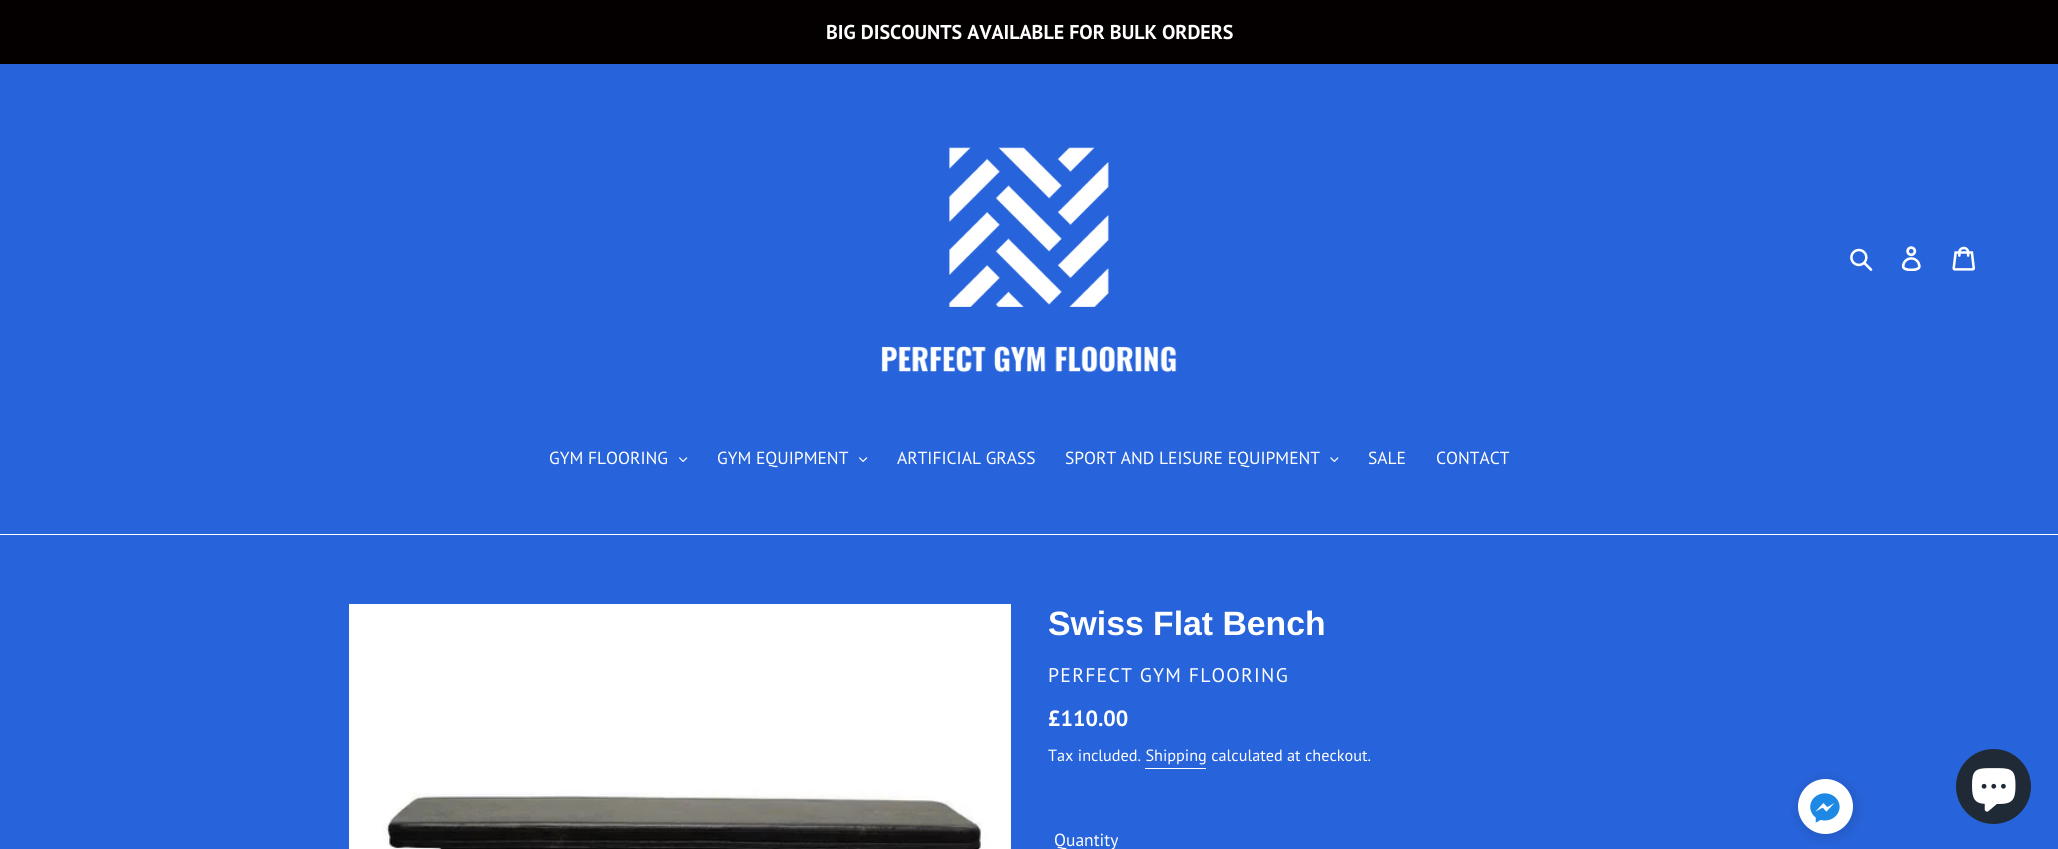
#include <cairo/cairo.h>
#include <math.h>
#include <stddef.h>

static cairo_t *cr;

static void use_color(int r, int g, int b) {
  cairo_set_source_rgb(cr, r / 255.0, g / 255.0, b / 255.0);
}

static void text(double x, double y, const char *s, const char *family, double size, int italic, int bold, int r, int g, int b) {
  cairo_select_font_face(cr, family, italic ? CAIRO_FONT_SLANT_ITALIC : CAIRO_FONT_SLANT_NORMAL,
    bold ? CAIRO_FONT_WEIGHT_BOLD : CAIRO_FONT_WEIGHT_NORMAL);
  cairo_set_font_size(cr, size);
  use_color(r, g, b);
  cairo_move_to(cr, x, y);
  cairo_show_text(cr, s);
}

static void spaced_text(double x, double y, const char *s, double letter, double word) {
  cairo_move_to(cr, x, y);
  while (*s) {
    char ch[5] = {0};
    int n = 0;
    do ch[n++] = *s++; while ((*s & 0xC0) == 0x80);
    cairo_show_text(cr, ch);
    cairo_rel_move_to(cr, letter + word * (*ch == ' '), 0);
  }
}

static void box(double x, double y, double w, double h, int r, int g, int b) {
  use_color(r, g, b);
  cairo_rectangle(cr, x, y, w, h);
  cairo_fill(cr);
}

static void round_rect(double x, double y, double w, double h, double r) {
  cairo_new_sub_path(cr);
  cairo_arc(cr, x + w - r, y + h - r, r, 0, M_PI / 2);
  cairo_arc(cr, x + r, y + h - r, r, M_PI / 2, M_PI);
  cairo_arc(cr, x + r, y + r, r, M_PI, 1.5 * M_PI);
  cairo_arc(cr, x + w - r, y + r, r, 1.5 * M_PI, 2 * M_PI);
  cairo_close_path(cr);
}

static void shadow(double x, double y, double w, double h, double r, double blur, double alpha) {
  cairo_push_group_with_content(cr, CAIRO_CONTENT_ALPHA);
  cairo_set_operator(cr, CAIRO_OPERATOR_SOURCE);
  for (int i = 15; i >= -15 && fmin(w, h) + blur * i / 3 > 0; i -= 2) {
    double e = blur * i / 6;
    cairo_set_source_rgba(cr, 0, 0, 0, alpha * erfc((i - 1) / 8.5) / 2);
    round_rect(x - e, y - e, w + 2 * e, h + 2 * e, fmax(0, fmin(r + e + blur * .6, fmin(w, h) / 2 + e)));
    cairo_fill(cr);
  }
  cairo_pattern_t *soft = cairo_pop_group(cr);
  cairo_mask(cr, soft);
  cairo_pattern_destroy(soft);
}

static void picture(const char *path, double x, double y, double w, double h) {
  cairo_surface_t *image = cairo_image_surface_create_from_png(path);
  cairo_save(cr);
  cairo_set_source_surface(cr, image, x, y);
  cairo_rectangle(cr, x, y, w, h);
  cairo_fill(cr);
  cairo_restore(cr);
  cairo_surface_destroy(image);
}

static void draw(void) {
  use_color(39, 99, 218);
  cairo_paint(cr);
  box(0, 0, 2058, 64, 5, 0, 0);
  picture("img_01.png", 881, 147, 296, 226);
  picture("img_02.png", 1850, 248, 23, 23);
  picture("img_03.png", 1901, 246, 20, 25);
  picture("img_04.png", 1952, 246, 23, 25);
  box(0, 534, 2058, 1, 255, 255, 255);
  picture("img_05.png", 679, 457, 9, 5);
  picture("img_05.png", 859, 457, 9, 5);
  picture("img_06.png", 1330, 457, 9, 5);
  picture("img_07.png", 349, 604, 662, 245);
  box(1145, 768, 61, 1, 255, 255, 255);
  use_color(0, 0, 0);
  shadow(1798, 779, 60, 60, 30, 5.5, 0.07);
  shadow(1798, 781, 55, 55, 27.5, 6, 0.05);
  picture("img_08.png", 1798, 779, 55, 55);
  use_color(32, 42, 54);
  cairo_arc(cr, 1993.5, 786.5, 37.5, 0, 2 * M_PI);
  cairo_fill(cr);
  picture("img_09.png", 1972, 768, 44, 44);
  text(826, 39, "BIG DISCOUNTS AVAILABLE FOR BULK ORDERS", "PT Sans", 20, 0, 1, 255, 255, 255);
  text(549, 464, "GYM FLOORING", "PT Sans", 17.5, 0, 0, 255, 255, 255);
  text(717, 464, "GYM EQUIPMENT", "PT Sans", 17.5, 0, 0, 255, 255, 255);
  text(897, 464, "ARTIFICIAL GRASS", "PT Sans", 17.5, 0, 0, 255, 255, 255);
  text(1065, 464, "SPORT AND LEISURE EQUIPMENT", "PT Sans", 17.5, 0, 0, 255, 255, 255);
  text(1368, 464, "SALE", "PT Sans", 17.5, 0, 0, 255, 255, 255);
  text(1436, 464, "CONTACT", "PT Sans", 17.5, 0, 0, 255, 255, 255);
  text(1048, 635, "Swiss Flat Bench", "Liberation Sans", 33.75, 0, 1, 255, 255, 255);
  cairo_select_font_face(cr, "PT Sans", CAIRO_FONT_SLANT_NORMAL, CAIRO_FONT_WEIGHT_NORMAL);
  cairo_set_font_size(cr, 19.75);
  spaced_text(1048, 682, "PERFECT GYM FLOORING", 1.25, 0);
  text(1048, 726, "£110.00", "PT Sans", 22, 0, 1, 255, 255, 255);
  text(1048, 761, "Tax included. Shipping calculated at checkout.", "PT Sans", 16.25, 0, 0, 255, 255, 255);
  text(1054, 846, "Quantity", "PT Sans", 17.5, 0, 0, 255, 255, 255);
}

int main(void) {
  cairo_surface_t *surface = cairo_image_surface_create(CAIRO_FORMAT_RGB24, 2058, 849);
  cr = cairo_create(surface);
  cairo_font_options_t *options = cairo_font_options_create();
  cairo_font_options_set_hint_metrics(options, CAIRO_HINT_METRICS_OFF);
  cairo_font_options_set_hint_style(options, CAIRO_HINT_STYLE_NONE);
  cairo_set_font_options(cr, options);
  cairo_set_miter_limit(cr, 4);
  draw();
  cairo_surface_write_to_png(surface, "out.png");
  cairo_font_options_destroy(options);
  cairo_destroy(cr);
  cairo_surface_destroy(surface);
  return 0;
}
